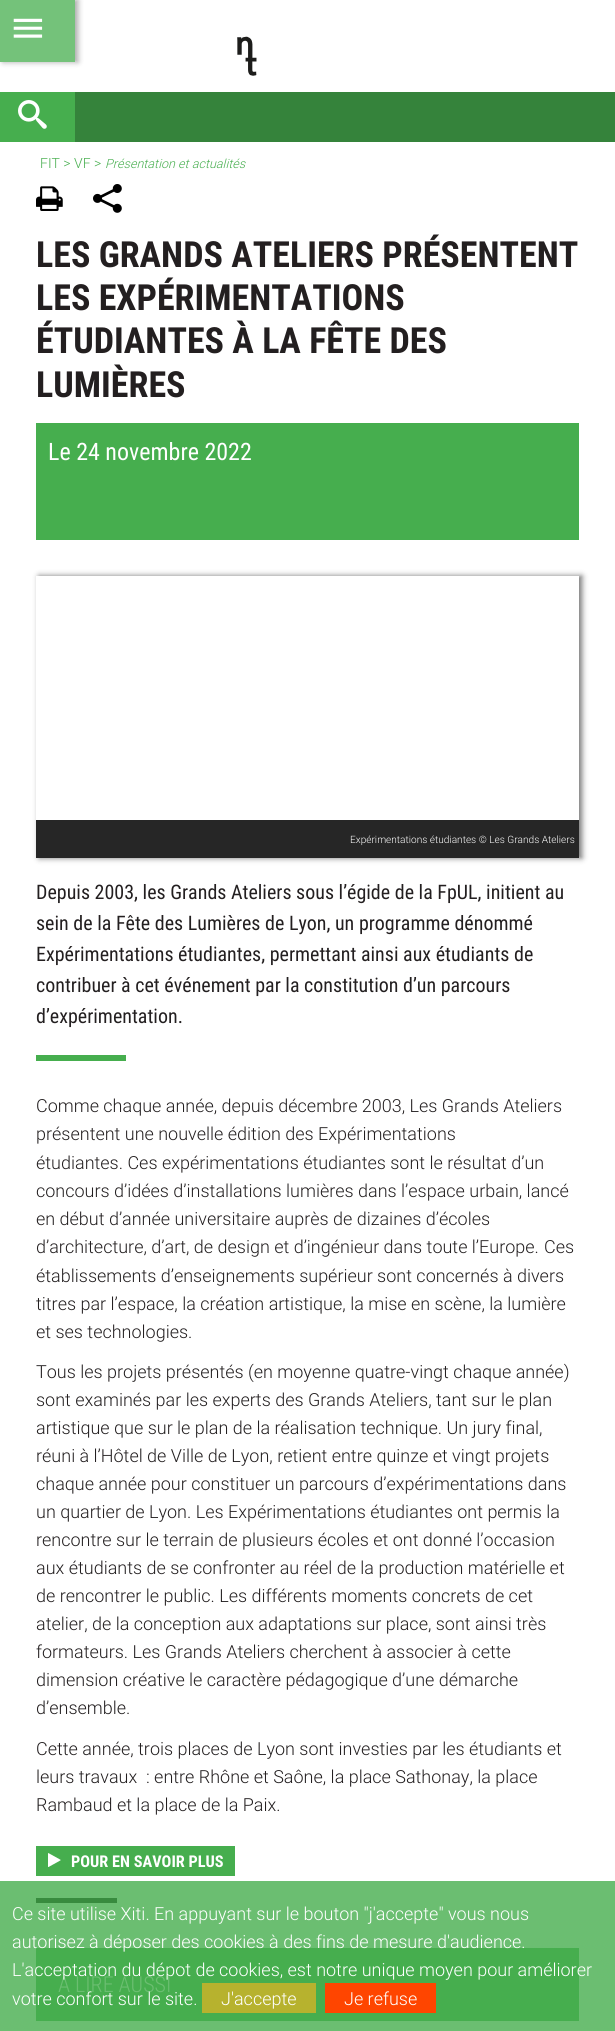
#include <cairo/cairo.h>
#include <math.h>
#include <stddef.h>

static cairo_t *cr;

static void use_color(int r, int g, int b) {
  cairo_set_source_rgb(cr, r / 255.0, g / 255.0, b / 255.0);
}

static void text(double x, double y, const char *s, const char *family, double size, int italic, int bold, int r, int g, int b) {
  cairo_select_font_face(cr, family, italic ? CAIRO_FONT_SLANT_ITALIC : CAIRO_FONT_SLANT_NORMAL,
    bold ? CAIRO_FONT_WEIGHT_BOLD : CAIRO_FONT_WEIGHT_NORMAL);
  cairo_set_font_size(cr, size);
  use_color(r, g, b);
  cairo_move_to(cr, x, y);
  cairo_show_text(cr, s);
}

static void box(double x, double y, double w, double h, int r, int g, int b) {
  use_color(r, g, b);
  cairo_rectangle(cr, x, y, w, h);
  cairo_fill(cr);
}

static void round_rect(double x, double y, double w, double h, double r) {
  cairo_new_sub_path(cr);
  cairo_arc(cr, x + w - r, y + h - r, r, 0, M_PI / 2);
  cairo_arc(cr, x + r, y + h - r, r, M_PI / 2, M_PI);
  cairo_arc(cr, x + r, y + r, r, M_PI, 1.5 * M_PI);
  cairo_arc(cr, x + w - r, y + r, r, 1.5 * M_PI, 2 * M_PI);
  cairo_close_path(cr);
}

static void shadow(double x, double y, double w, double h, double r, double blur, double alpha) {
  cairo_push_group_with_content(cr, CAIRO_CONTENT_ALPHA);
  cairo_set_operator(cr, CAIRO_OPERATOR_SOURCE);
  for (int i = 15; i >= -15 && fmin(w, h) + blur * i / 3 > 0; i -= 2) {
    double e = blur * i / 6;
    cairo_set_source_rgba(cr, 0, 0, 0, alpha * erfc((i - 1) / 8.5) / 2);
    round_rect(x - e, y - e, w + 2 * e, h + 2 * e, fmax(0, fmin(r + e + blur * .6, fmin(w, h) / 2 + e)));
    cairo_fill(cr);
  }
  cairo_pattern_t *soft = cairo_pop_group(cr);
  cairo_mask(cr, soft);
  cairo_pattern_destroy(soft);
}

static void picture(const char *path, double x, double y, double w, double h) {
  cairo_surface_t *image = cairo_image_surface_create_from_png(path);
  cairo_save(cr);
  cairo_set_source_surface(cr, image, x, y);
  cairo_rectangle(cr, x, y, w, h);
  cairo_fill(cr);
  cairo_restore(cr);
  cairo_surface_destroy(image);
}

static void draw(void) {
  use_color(255, 255, 255);
  cairo_paint(cr);
  box(0, 1881, 615, 150, 107, 190, 113);
  use_color(0, 0, 0);
  shadow(3, 0, 75, 62, 0, 3, 0.34);
  box(0, 0, 75, 62, 116, 194, 122);
  picture("img_01.png", 13, 18, 30, 20);
  picture("img_02.png", 36, 186, 27, 25);
  picture("img_03.png", 93, 184, 29, 29);
  box(36, 423, 543, 117, 70, 174, 78);
  cairo_save(cr);
  cairo_set_fill_rule(cr, CAIRO_FILL_RULE_EVEN_ODD);
  cairo_new_path(cr);
  cairo_move_to(cr, 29, 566);
  cairo_line_to(cr, 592, 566);
  cairo_line_to(cr, 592, 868);
  cairo_line_to(cr, 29, 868);
  cairo_close_path(cr);
  cairo_move_to(cr, 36, 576);
  cairo_line_to(cr, 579, 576);
  cairo_line_to(cr, 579, 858);
  cairo_line_to(cr, 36, 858);
  cairo_close_path(cr);
  cairo_clip(cr);
  use_color(0, 0, 0);
  shadow(39, 576, 543, 282, 0, 3, 0.54);
  cairo_restore(cr);
  box(36, 820, 543, 38, 38, 38, 38);
  box(36, 1055, 90, 6, 70, 174, 78);
  box(36, 1846, 199, 30, 70, 174, 78);
  picture("img_04.png", 48, 1853, 13, 14);
  box(36, 1898, 81, 5, 56, 139, 62);
  box(36, 1948, 543, 73, 70, 174, 78);
  picture("img_05.png", 237, 36, 20, 40);
  box(0, 92, 75, 50, 70, 174, 78);
  picture("img_06.png", 18, 100, 29, 29);
  box(75, 92, 540, 50, 53, 131, 59);
  box(202, 1983, 114, 30, 183, 178, 46);
  box(325, 1983, 111, 30, 255, 69, 0);
  text(40, 168, "FIT > VF >", "Roboto Light", 14, 0, 0, 70, 174, 78);
  text(105, 168, "Présentation et actualités", "Roboto Light", 12.6, 1, 0, 70, 174, 78);
  text(36, 267, "LES GRANDS ATELIERS PRÉSENTENT", "Roboto Condensed", 36, 0, 1, 35, 31, 32);
  text(36, 310, "LES EXPÉRIMENTATIONS", "Roboto Condensed", 36, 0, 1, 35, 31, 32);
  text(36, 353, "ÉTUDIANTES À LA FÊTE DES", "Roboto Condensed", 36, 0, 1, 35, 31, 32);
  text(36, 397, "LUMIÈRES", "Roboto Condensed", 36, 0, 1, 35, 31, 32);
  text(48, 460, "Le 24 novembre 2022", "Roboto Condensed", 24, 0, 0, 255, 255, 255);
  text(350, 843, "Expérimentations étudiantes © Les Grands Ateliers", "Roboto Light", 10.1, 0, 0, 255, 255, 255);
  text(36, 899, "Depuis 2003, les Grands Ateliers sous l’égide de la FpUL, initient au", "Roboto Condensed", 20, 0, 0, 35, 31, 32);
  text(36, 930, "sein de la Fête des Lumières de Lyon, un programme dénommé", "Roboto Condensed", 20, 0, 0, 35, 31, 32);
  text(36, 961, "Expérimentations étudiantes, permettant ainsi aux étudiants de", "Roboto Condensed", 20, 0, 0, 35, 31, 32);
  text(36, 992, "contribuer à cet événement par la constitution d’un parcours", "Roboto Condensed", 20, 0, 0, 35, 31, 32);
  text(36, 1023, "d’expérimentation.", "Roboto Condensed", 20, 0, 0, 35, 31, 32);
  text(36, 1112, "Comme chaque année, depuis décembre 2003, Les Grands Ateliers", "Roboto Light", 18, 0, 0, 35, 31, 32);
  text(36, 1140, "présentent une nouvelle édition des Expérimentations", "Roboto Light", 18, 0, 0, 35, 31, 32);
  text(36, 1169, "étudiantes. Ces expérimentations étudiantes sont le résultat d’un", "Roboto Light", 18, 0, 0, 35, 31, 32);
  text(36, 1197, "concours d’idées d’installations lumières dans l’espace urbain, lancé", "Roboto Light", 18, 0, 0, 35, 31, 32);
  text(36, 1225, "en début d’année universitaire auprès de dizaines d’écoles", "Roboto Light", 18, 0, 0, 35, 31, 32);
  text(36, 1253, "d’architecture, d’art, de design et d’ingénieur dans toute l’Europe.", "Roboto Light", 18, 0, 0, 35, 31, 32);
  text(544, 1253, "Ces", "Roboto Light", 18, 0, 0, 35, 31, 32);
  text(36, 1282, "établissements d’enseignements supérieur sont concernés à divers", "Roboto Light", 18, 0, 0, 35, 31, 32);
  text(36, 1310, "titres par l’espace, la création artistique, la mise en scène, la lumière", "Roboto Light", 18, 0, 0, 35, 31, 32);
  text(36, 1338, "et ses technologies.", "Roboto Light", 18, 0, 0, 35, 31, 32);
  text(36, 1378, "Tous les projets présentés (en moyenne quatre-vingt chaque année)", "Roboto Light", 18, 0, 0, 35, 31, 32);
  text(36, 1406, "sont examinés par les experts des Grands Ateliers, tant sur le plan", "Roboto Light", 18, 0, 0, 35, 31, 32);
  text(36, 1434, "artistique que sur le plan de la réalisation technique. Un jury final,", "Roboto Light", 18, 0, 0, 35, 31, 32);
  text(36, 1462, "réuni à l’Hôtel de Ville de Lyon, retient entre quinze et vingt projets", "Roboto Light", 18, 0, 0, 35, 31, 32);
  text(36, 1490, "chaque année pour constituer un parcours d’expérimentations dans", "Roboto Light", 18, 0, 0, 35, 31, 32);
  text(36, 1518, "un quartier de Lyon. Les Expérimentations étudiantes ont permis la", "Roboto Light", 18, 0, 0, 35, 31, 32);
  text(36, 1546, "rencontre sur le terrain de plusieurs écoles et ont donné l’occasion", "Roboto Light", 18, 0, 0, 35, 31, 32);
  text(36, 1574, "aux étudiants de se confronter au réel de la production matérielle et", "Roboto Light", 18, 0, 0, 35, 31, 32);
  text(36, 1602, "de rencontrer le public. Les différents moments concrets de cet", "Roboto Light", 18, 0, 0, 35, 31, 32);
  text(36, 1630, "atelier, de la conception aux adaptations sur place, sont ainsi très", "Roboto Light", 18, 0, 0, 35, 31, 32);
  text(36, 1658, "formateurs. Les Grands Ateliers cherchent à associer à cette", "Roboto Light", 18, 0, 0, 35, 31, 32);
  text(36, 1686, "dimension créative le caractère pédagogique d’une démarche", "Roboto Light", 18, 0, 0, 35, 31, 32);
  text(36, 1714, "d’ensemble.", "Roboto Light", 18, 0, 0, 35, 31, 32);
  text(36, 1755, "Cette année, trois places de Lyon sont investies par les étudiants et", "Roboto Light", 18, 0, 0, 35, 31, 32);
  text(36, 1783, "leurs travaux  : entre Rhône et Saône, la place Sathonay, la place", "Roboto Light", 18, 0, 0, 35, 31, 32);
  text(36, 1811, "Rambaud et la place de la Paix.", "Roboto Light", 18, 0, 0, 35, 31, 32);
  text(71, 1867, "POUR EN SAVOIR PLUS", "Roboto Condensed", 16.25, 0, 1, 255, 255, 255);
  text(58, 1992, "À LIRE AUSSI", "Roboto Condensed Light", 22, 0, 0, 107, 190, 113);
  text(12, 1920, "Ce site utilise Xiti. En appuyant sur le bouton \"j'accepte\" vous nous", "Roboto Light", 18, 0, 0, 255, 255, 255);
  text(12, 1948, "autorisez à déposer des cookies à des fins de mesure d'audience.", "Roboto Light", 18, 0, 0, 255, 255, 255);
  text(12, 1976, "L'acceptation du dépot de cookies, est notre unique moyen pour améliorer", "Roboto Light", 18, 0, 0, 255, 255, 255);
  text(12, 2005, "votre confort sur le site.", "Roboto Light", 18, 0, 0, 255, 255, 255);
  text(221, 2005, "J'accepte", "Roboto Light", 18, 0, 0, 255, 255, 255);
  text(344, 2005, "Je refuse", "Roboto Light", 18, 0, 0, 255, 255, 255);
}

int main(void) {
  cairo_surface_t *surface = cairo_image_surface_create(CAIRO_FORMAT_RGB24, 615, 2031);
  cr = cairo_create(surface);
  cairo_font_options_t *options = cairo_font_options_create();
  cairo_font_options_set_hint_metrics(options, CAIRO_HINT_METRICS_OFF);
  cairo_font_options_set_hint_style(options, CAIRO_HINT_STYLE_NONE);
  cairo_set_font_options(cr, options);
  cairo_set_miter_limit(cr, 4);
  draw();
  cairo_surface_write_to_png(surface, "out.png");
  cairo_font_options_destroy(options);
  cairo_destroy(cr);
  cairo_surface_destroy(surface);
  return 0;
}
